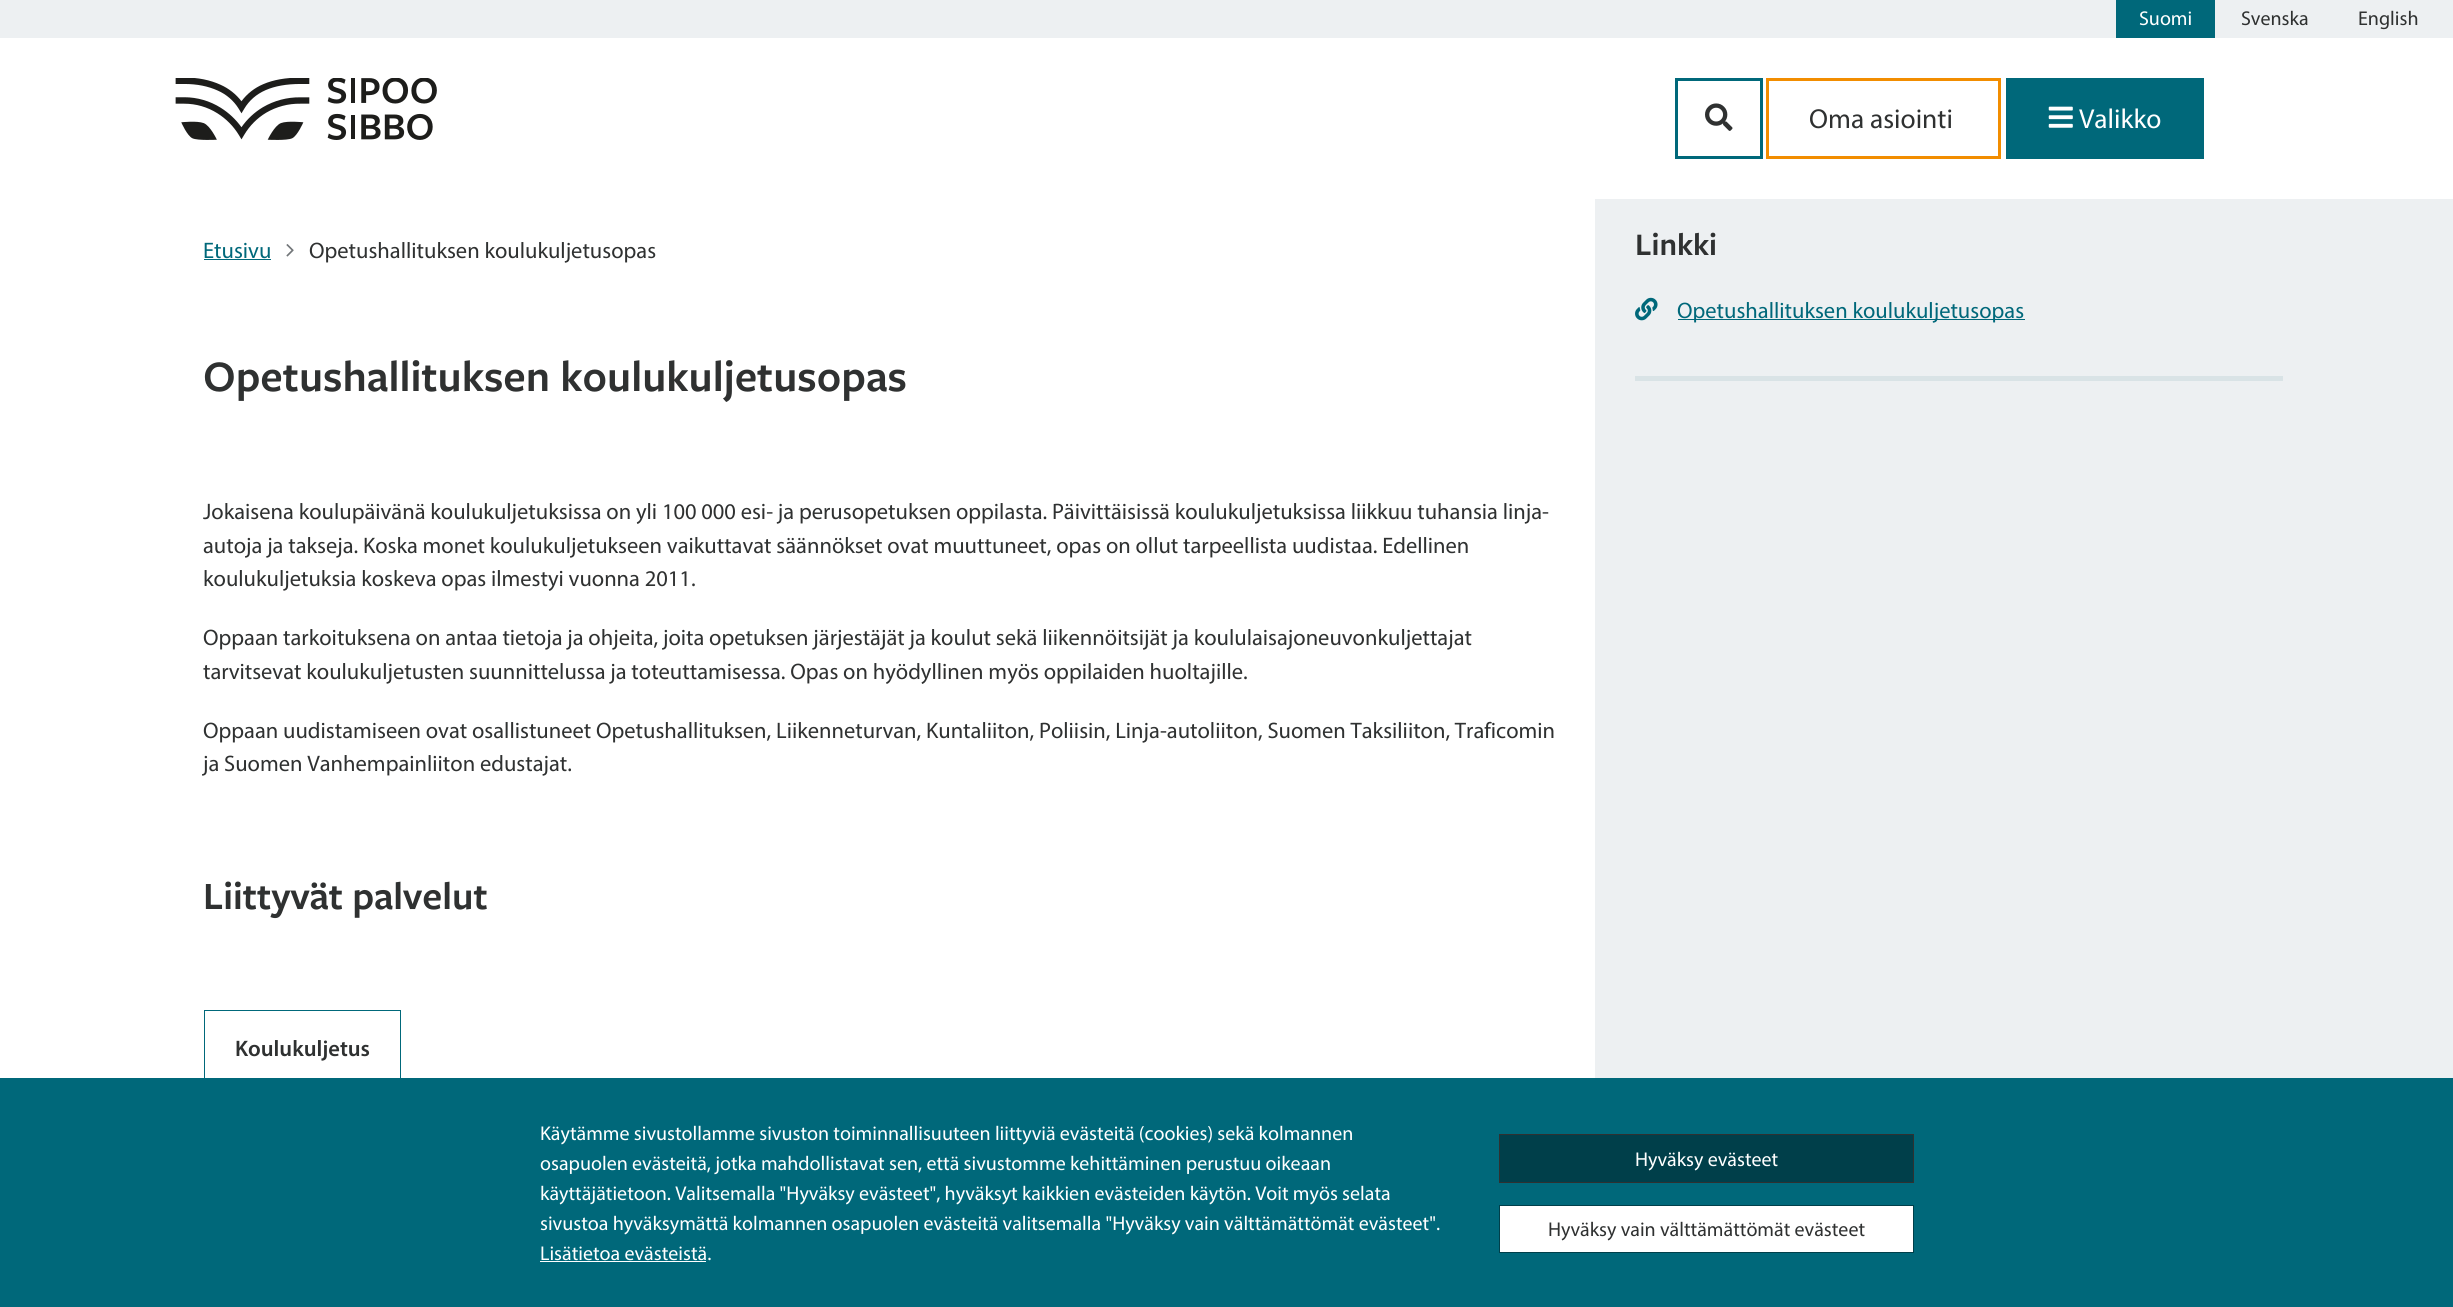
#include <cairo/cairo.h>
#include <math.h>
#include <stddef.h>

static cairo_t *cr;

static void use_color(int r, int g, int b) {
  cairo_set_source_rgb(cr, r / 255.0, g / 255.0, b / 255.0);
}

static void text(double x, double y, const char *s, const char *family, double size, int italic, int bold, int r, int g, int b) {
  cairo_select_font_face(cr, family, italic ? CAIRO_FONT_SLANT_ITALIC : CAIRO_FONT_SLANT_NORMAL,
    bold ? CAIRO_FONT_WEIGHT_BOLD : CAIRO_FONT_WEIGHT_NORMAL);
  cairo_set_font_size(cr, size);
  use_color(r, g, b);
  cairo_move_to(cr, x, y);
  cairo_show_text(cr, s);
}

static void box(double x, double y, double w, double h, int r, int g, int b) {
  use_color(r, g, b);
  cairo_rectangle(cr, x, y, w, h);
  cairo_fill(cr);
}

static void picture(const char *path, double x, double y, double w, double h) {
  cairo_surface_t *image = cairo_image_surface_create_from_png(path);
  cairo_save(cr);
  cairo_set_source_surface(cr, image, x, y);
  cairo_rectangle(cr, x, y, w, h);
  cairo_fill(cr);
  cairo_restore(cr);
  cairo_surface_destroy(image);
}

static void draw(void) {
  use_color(255, 255, 255);
  cairo_paint(cr);
  box(0, 0, 2453, 38, 237, 240, 242);
  box(2116, 0, 99, 38, 0, 104, 122);
  picture("img_01.png", 175, 78, 262, 62);
  cairo_rectangle(cr, 1676.5, 79.5, 85, 78);
  cairo_set_line_width(cr, 3);
  cairo_stroke(cr);
  picture("img_02.png", 1705, 103, 28, 28);
  cairo_rectangle(cr, 1767.5, 79.5, 232, 78);
  use_color(242, 141, 0);
  cairo_stroke(cr);
  box(2006, 78, 198, 81, 0, 104, 122);
  picture("img_03.png", 2048, 106, 25, 22);
  box(204, 259, 67, 1, 0, 104, 122);
  picture("img_04.png", 286, 244, 8, 13);
  cairo_rectangle(cr, 204.5, 1010.5, 196, 75);
  cairo_set_line_width(cr, 1);
  cairo_stroke(cr);
  box(1595, 199, 858, 879, 237, 240, 242);
  picture("img_05.png", 1635, 297, 23, 24);
  box(1678, 319, 347, 1, 0, 104, 122);
  box(1635, 376, 648, 5, 217, 227, 230);
  box(0, 1078, 2453, 229, 0, 104, 122);
  box(540, 1261, 166, 1, 255, 255, 255);
  use_color(0, 63, 74);
  cairo_rectangle(cr, 1499.5, 1134.5, 414, 48);
  cairo_fill_preserve(cr);
  use_color(47, 49, 49);
  cairo_stroke(cr);
  use_color(255, 255, 255);
  cairo_rectangle(cr, 1499.5, 1205.5, 414, 47);
  cairo_fill_preserve(cr);
  use_color(0, 63, 74);
  cairo_stroke(cr);
  text(2139, 25, "Suomi", "Myriad", 20, 0, 0, 255, 255, 255);
  text(2241, 25, "Svenska", "Myriad", 20, 0, 0, 47, 49, 49);
  text(2358, 25, "English", "Myriad", 20, 0, 0, 47, 49, 49);
  text(1809, 128, "Oma asiointi", "Myriad", 27.5, 0, 0, 47, 49, 49);
  text(2079, 128, "Valikko", "Myriad", 27.5, 0, 0, 255, 255, 255);
  text(203, 258, "Etusivu", "Myriad", 22.5, 0, 0, 0, 104, 122);
  text(309, 258, "Opetushallituksen koulukuljetusopas", "Myriad", 22.5, 0, 0, 47, 49, 49);
  text(203, 391, "Opetushallituksen koulukuljetusopas", "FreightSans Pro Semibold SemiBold", 45, 0, 0, 47, 49, 49);
  text(203, 519, "Jokaisena koulupäivänä koulukuljetuksissa on yli 100 000 esi- ja perusopetuksen oppilasta. Päivittäisissä koulukuljetuksissa liikkuu tuhansia linja-", "Myriad", 22.5, 0, 0, 47, 49, 49);
  text(203, 553, "autoja ja takseja. Koska monet koulukuljetukseen vaikuttavat säännökset ovat muuttuneet, opas on ollut tarpeellista uudistaa. Edellinen", "Myriad", 22.5, 0, 0, 47, 49, 49);
  text(203, 586, "koulukuljetuksia koskeva opas ilmestyi vuonna 2011.", "Myriad", 22.5, 0, 0, 47, 49, 49);
  text(203, 645, "Oppaan tarkoituksena on antaa tietoja ja ohjeita, joita opetuksen järjestäjät ja koulut sekä liikennöitsijät ja koululaisajoneuvonkuljettajat", "Myriad", 22.5, 0, 0, 47, 49, 49);
  text(203, 679, "tarvitsevat koulukuljetusten suunnittelussa ja toteuttamisessa. Opas on hyödyllinen myös oppilaiden huoltajille.", "Myriad", 22.5, 0, 0, 47, 49, 49);
  text(203, 738, "Oppaan uudistamiseen ovat osallistuneet Opetushallituksen, Liikenneturvan, Kuntaliiton, Poliisin, Linja-autoliiton, Suomen Taksiliiton, Traficomin", "Myriad", 22.5, 0, 0, 47, 49, 49);
  text(203, 771, "ja Suomen Vanhempainliiton edustajat.", "Myriad", 22.5, 0, 0, 47, 49, 49);
  text(203, 909, "Liittyvät palvelut", "FreightSans Pro Semibold SemiBold", 40, 0, 0, 47, 49, 49);
  text(235, 1056, "Koulukuljetus", "Myriad SemiBold", 22.5, 0, 0, 47, 49, 49);
  text(1635, 255, "Linkki", "FreightSans Pro Semibold SemiBold", 32.5, 0, 0, 47, 49, 49);
  text(1677, 318, "Opetushallituksen koulukuljetusopas", "Myriad", 22.5, 0, 0, 0, 104, 122);
  text(540, 1140, "Käytämme sivustollamme sivuston toiminnallisuuteen liittyviä evästeitä (cookies) sekä kolmannen", "Myriad", 20, 0, 0, 255, 255, 255);
  text(540, 1170, "osapuolen evästeitä, jotka mahdollistavat sen, että sivustomme kehittäminen perustuu oikeaan", "Myriad", 20, 0, 0, 255, 255, 255);
  text(540, 1200, "käyttäjätietoon. Valitsemalla \"Hyväksy evästeet\", hyväksyt kaikkien evästeiden käytön. Voit myös selata", "Myriad", 20, 0, 0, 255, 255, 255);
  text(540, 1230, "sivustoa hyväksymättä kolmannen osapuolen evästeitä valitsemalla \"Hyväksy vain välttämättömät evästeet\".", "Myriad", 20, 0, 0, 255, 255, 255);
  text(540, 1260, "Lisätietoa evästeistä.", "Myriad", 20, 0, 0, 255, 255, 255);
  text(1635, 1166, "Hyväksy evästeet", "Myriad", 20, 0, 0, 255, 255, 255);
  text(1548, 1236, "Hyväksy vain välttämättömät evästeet", "Myriad", 20, 0, 0, 47, 49, 49);
}

int main(void) {
  cairo_surface_t *surface = cairo_image_surface_create(CAIRO_FORMAT_RGB24, 2453, 1307);
  cr = cairo_create(surface);
  cairo_font_options_t *options = cairo_font_options_create();
  cairo_font_options_set_hint_metrics(options, CAIRO_HINT_METRICS_OFF);
  cairo_font_options_set_hint_style(options, CAIRO_HINT_STYLE_NONE);
  cairo_set_font_options(cr, options);
  cairo_set_miter_limit(cr, 4);
  draw();
  cairo_surface_write_to_png(surface, "out.png");
  cairo_font_options_destroy(options);
  cairo_destroy(cr);
  cairo_surface_destroy(surface);
  return 0;
}
